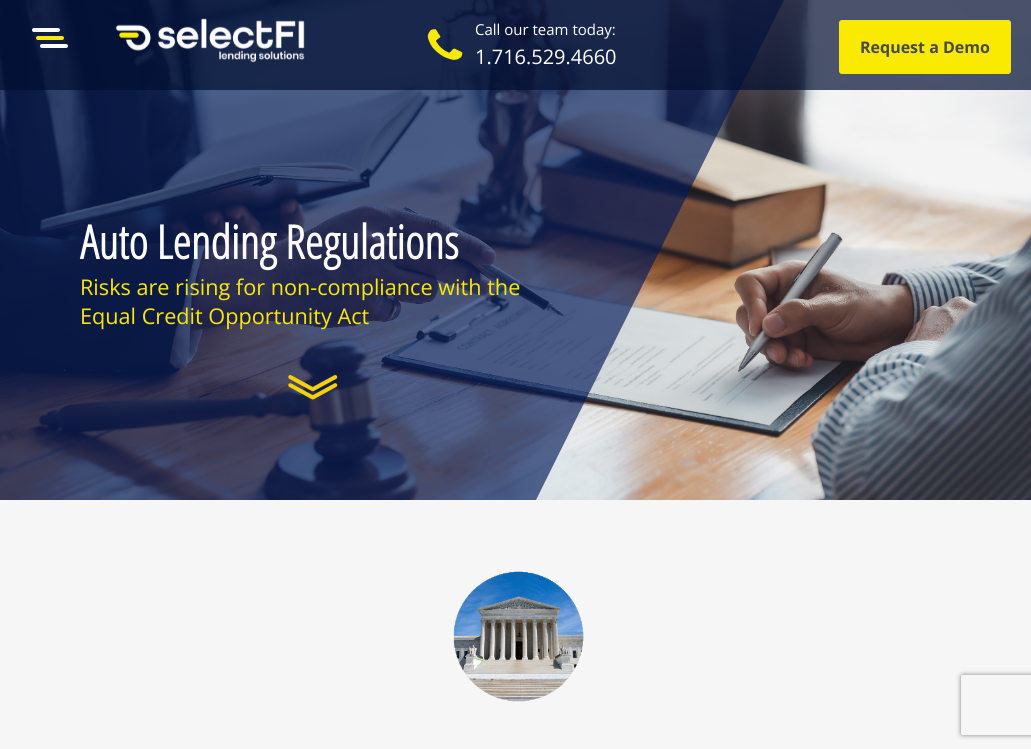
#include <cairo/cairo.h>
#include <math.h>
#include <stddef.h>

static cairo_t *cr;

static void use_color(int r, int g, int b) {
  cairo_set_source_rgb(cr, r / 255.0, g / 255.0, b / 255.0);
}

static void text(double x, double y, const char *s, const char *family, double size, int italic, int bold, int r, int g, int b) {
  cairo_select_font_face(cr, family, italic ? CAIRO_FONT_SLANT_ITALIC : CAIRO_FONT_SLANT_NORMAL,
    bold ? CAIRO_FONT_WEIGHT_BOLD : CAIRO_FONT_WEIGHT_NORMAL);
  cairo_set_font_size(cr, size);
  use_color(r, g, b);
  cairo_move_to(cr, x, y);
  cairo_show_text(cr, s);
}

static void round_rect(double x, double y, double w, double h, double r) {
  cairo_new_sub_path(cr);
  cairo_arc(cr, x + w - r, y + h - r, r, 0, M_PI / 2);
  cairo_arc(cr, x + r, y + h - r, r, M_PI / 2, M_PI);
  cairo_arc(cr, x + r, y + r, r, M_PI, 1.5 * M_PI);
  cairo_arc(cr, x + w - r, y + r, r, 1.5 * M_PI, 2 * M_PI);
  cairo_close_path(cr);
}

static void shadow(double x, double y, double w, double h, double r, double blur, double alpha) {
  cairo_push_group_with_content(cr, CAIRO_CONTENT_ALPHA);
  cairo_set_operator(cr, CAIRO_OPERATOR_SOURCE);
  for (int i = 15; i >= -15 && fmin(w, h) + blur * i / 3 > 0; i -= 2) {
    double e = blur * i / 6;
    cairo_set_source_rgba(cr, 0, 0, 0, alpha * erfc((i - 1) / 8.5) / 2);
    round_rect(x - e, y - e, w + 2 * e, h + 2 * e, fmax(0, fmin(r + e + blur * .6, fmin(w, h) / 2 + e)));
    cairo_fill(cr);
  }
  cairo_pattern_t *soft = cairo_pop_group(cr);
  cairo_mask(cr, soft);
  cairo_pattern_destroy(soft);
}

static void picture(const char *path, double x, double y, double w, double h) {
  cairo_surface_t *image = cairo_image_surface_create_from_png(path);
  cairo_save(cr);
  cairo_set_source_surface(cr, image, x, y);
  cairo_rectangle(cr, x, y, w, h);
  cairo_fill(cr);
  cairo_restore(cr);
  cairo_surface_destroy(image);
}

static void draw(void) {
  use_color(246, 246, 246);
  cairo_paint(cr);
  picture("img_03.png", 0, 0, 1031, 500);
  cairo_set_source_rgba(cr, 0.004, 0.098, 0.345, 0.65);
  cairo_new_path(cr);
  cairo_move_to(cr, 0, 0);
  cairo_line_to(cr, 0, 500);
  cairo_line_to(cr, 536, 500);
  cairo_line_to(cr, 784, 0);
  cairo_close_path(cr);
  cairo_fill(cr);
  cairo_set_source_rgba(cr, 0.008, 0.059, 0.192, 0.7);
  cairo_rectangle(cr, 0, 0, 1031, 90);
  cairo_fill(cr);
  use_color(250, 233, 0);
  round_rect(36, 36, 28, 4, 2);
  cairo_fill(cr);
  use_color(255, 255, 255);
  round_rect(32, 28, 28, 4, 2);
  cairo_fill(cr);
  round_rect(40, 44, 28, 4, 2);
  cairo_fill(cr);
  picture("img_01.png", 115, 18, 190, 45);
  picture("img_02.png", 427, 29, 36, 31);
  use_color(250, 233, 0);
  round_rect(839.5, 20.5, 171, 53, 2.5);
  cairo_fill_preserve(cr);
  cairo_set_line_width(cr, 1);
  cairo_stroke(cr);
  picture("img_04.png", 288, 375, 50, 25);
  picture("img_05.png", 453, 571, 131, 131);
  cairo_save(cr);
  cairo_set_fill_rule(cr, CAIRO_FILL_RULE_EVEN_ODD);
  cairo_new_path(cr);
  cairo_move_to(cr, 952, 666);
  cairo_line_to(cr, 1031, 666);
  cairo_line_to(cr, 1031, 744);
  cairo_line_to(cr, 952, 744);
  cairo_close_path(cr);
  cairo_move_to(cr, 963, 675);
  cairo_line_to(cr, 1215, 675);
  cairo_curve_to(cr, 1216, 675, 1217, 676, 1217, 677);
  cairo_line_to(cr, 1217, 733);
  cairo_curve_to(cr, 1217, 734, 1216, 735, 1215, 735);
  cairo_line_to(cr, 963, 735);
  cairo_curve_to(cr, 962, 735, 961, 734, 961, 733);
  cairo_line_to(cr, 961, 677);
  cairo_curve_to(cr, 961, 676, 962, 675, 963, 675);
  cairo_close_path(cr);
  cairo_clip(cr);
  use_color(128, 128, 128);
  shadow(961, 675, 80, 60, 2, 2.5, 1);
  cairo_restore(cr);
  text(475, 35, "Call our team today:", "Open Sans", 15, 0, 0, 255, 255, 255);
  text(475, 64, "1.716.529.4660", "Open Sans", 20, 0, 0, 255, 255, 255);
  text(860, 53, "Request a Demo", "Open Sans", 16, 0, 1, 73, 73, 73);
  text(80, 259, "Auto Lending Regulations", "Open Sans Condensed", 46.5, 0, 1, 255, 255, 255);
  text(80, 295, "Risks are rising for non-compliance with the", "Open Sans", 21.65, 0, 0, 250, 233, 0);
  text(80, 324, "Equal Credit Opportunity Act", "Open Sans", 21.65, 0, 0, 250, 233, 0);
}

int main(void) {
  cairo_surface_t *surface = cairo_image_surface_create(CAIRO_FORMAT_RGB24, 1031, 749);
  cr = cairo_create(surface);
  cairo_font_options_t *options = cairo_font_options_create();
  cairo_font_options_set_hint_metrics(options, CAIRO_HINT_METRICS_OFF);
  cairo_font_options_set_hint_style(options, CAIRO_HINT_STYLE_NONE);
  cairo_set_font_options(cr, options);
  cairo_set_miter_limit(cr, 4);
  draw();
  cairo_surface_write_to_png(surface, "out.png");
  cairo_font_options_destroy(options);
  cairo_destroy(cr);
  cairo_surface_destroy(surface);
  return 0;
}
